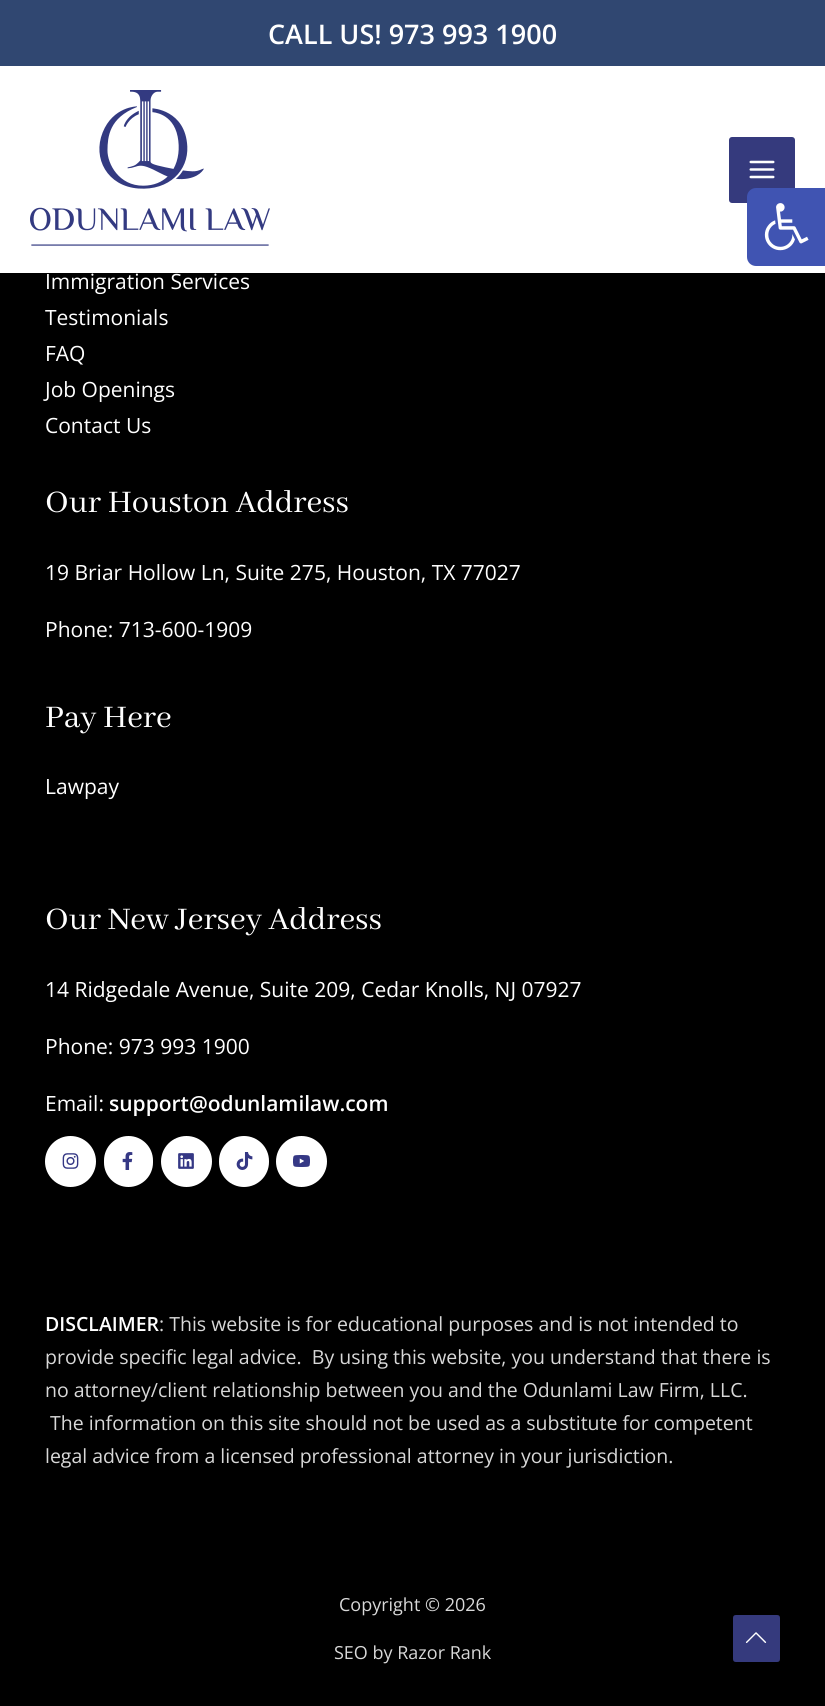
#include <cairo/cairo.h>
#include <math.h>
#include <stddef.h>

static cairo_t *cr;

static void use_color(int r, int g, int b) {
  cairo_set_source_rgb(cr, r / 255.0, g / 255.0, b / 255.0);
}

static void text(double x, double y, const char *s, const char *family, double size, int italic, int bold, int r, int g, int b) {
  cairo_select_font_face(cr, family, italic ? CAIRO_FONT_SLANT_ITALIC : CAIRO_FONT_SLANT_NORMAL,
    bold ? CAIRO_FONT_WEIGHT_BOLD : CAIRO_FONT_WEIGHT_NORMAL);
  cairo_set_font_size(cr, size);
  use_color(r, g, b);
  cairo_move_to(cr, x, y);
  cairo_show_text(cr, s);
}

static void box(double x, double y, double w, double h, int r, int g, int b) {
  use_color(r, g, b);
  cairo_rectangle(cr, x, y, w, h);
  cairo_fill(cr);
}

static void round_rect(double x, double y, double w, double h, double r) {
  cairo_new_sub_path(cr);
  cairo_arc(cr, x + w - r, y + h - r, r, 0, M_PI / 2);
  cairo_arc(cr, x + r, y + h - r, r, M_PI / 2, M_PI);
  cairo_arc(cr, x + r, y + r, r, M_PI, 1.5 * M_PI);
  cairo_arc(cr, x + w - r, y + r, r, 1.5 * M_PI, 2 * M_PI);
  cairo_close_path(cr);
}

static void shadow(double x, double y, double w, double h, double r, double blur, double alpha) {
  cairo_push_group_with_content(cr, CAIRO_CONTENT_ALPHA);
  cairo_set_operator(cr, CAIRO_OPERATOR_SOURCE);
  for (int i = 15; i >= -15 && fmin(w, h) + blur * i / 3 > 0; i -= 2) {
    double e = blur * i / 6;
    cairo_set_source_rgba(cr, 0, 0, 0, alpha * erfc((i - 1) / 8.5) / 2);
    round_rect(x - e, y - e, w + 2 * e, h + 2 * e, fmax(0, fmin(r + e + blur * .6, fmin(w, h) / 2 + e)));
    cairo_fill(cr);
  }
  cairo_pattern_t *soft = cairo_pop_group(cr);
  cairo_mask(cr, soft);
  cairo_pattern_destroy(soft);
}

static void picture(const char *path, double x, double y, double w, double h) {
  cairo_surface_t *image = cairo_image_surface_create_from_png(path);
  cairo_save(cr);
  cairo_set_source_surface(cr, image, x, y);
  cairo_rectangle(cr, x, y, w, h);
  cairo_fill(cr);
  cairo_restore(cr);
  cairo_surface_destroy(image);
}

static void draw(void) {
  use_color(0, 0, 0);
  cairo_paint(cr);
  shadow(0, 68, 825, 207, 0, 1.5, 0.2);
  box(0, 0, 825, 66, 48, 71, 113);
  box(0, 66, 825, 207, 255, 255, 255);
  use_color(53, 58, 125);
  round_rect(729, 137, 66, 66, 3);
  cairo_fill(cr);
  use_color(64, 84, 178);
  cairo_new_path(cr);
  cairo_move_to(cr, 756, 188);
  cairo_line_to(cr, 825, 188);
  cairo_line_to(cr, 825, 266);
  cairo_line_to(cr, 756, 266);
  cairo_curve_to(cr, 751, 266, 747, 262, 747, 257);
  cairo_line_to(cr, 747, 197);
  cairo_curve_to(cr, 747, 192, 751, 188, 756, 188);
  cairo_close_path(cr);
  cairo_fill(cr);
  picture("img_01.png", 764, 203, 45, 48);
  picture("img_02.png", 30, 90, 240, 156);
  picture("img_03.png", 749, 160, 26, 19);
  use_color(255, 255, 255);
  cairo_arc(cr, 70.5, 1161.5, 25.5, 0, 2 * M_PI);
  cairo_fill(cr);
  picture("img_04.png", 62, 1153, 17, 16);
  round_rect(104, 1136, 49, 51, 24.5);
  cairo_fill(cr);
  picture("img_05.png", 122, 1152, 11, 18);
  cairo_arc(cr, 186.5, 1161.5, 25.5, 0, 2 * M_PI);
  cairo_fill(cr);
  picture("img_06.png", 178, 1153, 16, 16);
  round_rect(219, 1136, 50, 51, 25);
  cairo_fill(cr);
  picture("img_07.png", 236, 1152, 17, 18);
  cairo_arc(cr, 301.5, 1161.5, 25.5, 0, 2 * M_PI);
  cairo_fill(cr);
  picture("img_08.png", 293, 1155, 17, 12);
  use_color(53, 58, 125);
  cairo_new_path(cr);
  cairo_move_to(cr, 777, 1662);
  cairo_line_to(cr, 736, 1662);
  cairo_curve_to(cr, 734, 1662, 733, 1661, 733, 1659);
  cairo_line_to(cr, 733, 1618);
  cairo_curve_to(cr, 733, 1616, 734, 1615, 736, 1615);
  cairo_line_to(cr, 777, 1615);
  cairo_curve_to(cr, 779, 1615, 780, 1616, 780, 1618);
  cairo_line_to(cr, 780, 1659);
  cairo_curve_to(cr, 780, 1661, 779, 1662, 777, 1662);
  cairo_close_path(cr);
  cairo_fill(cr);
  picture("img_09.png", 745, 1632, 22, 11);
  text(268, 44, "CALL US! 973 993 1900", "Open Sans SemiBold", 27, 0, 0, 255, 255, 255);
  text(45, 289, "Immigration Services", "Open Sans", 21, 0, 0, 255, 255, 255);
  text(45, 325, "Testimonials", "Open Sans", 21, 0, 0, 255, 255, 255);
  text(45, 361, "FAQ", "Open Sans", 21, 0, 0, 255, 255, 255);
  text(45, 397, "Job Openings", "Open Sans", 21, 0, 0, 255, 255, 255);
  text(45, 433, "Contact Us", "Open Sans", 21, 0, 0, 255, 255, 255);
  text(45, 512, "Our Houston Address", "Abhaya Libre", 34.5, 0, 0, 255, 255, 255);
  text(45, 580, "19 Briar Hollow Ln, Suite 275, Houston, TX 77027", "Open Sans", 21, 0, 0, 255, 255, 255);
  text(45, 637, "Phone: 713-600-1909", "Open Sans", 21, 0, 0, 255, 255, 255);
  text(45, 727, "Pay Here", "Abhaya Libre", 34.5, 0, 0, 255, 255, 255);
  text(45, 794, "Lawpay", "Open Sans", 21, 0, 0, 255, 255, 255);
  text(45, 929, "Our New Jersey Address", "Abhaya Libre", 34.5, 0, 0, 255, 255, 255);
  text(45, 997, "14 Ridgedale Avenue, Suite 209, Cedar Knolls, NJ 07927", "Open Sans", 21, 0, 0, 255, 255, 255);
  text(45, 1054, "Phone: 973 993 1900", "Open Sans", 21, 0, 0, 255, 255, 255);
  text(45, 1111, "Email:", "Open Sans", 21, 0, 0, 255, 255, 255);
  text(109, 1111, "support@odunlamilaw.com", "Open Sans SemiBold", 21, 0, 0, 255, 255, 255);
  text(45, 1331, "DISCLAIMER", "Open Sans SemiBold", 19.5, 0, 0, 255, 255, 255);
  text(159, 1331, ": This website is for educational purposes and is not intended to", "Open Sans", 19.5, 0, 0, 216, 216, 216);
  text(45, 1364, "provide specific legal advice.  By using this website, you understand that there is", "Open Sans", 19.5, 0, 0, 216, 216, 216);
  text(45, 1397, "no attorney/client relationship between you and the Odunlami Law Firm, LLC.", "Open Sans", 19.5, 0, 0, 216, 216, 216);
  text(50, 1430, "The information on this site should not be used as a substitute for competent", "Open Sans", 19.5, 0, 0, 216, 216, 216);
  text(45, 1463, "legal advice from a licensed professional attorney in your jurisdiction.", "Open Sans", 19.5, 0, 0, 216, 216, 216);
  text(339, 1611, "Copyright © 2026", "Open Sans", 18, 0, 0, 216, 216, 216);
  text(334, 1659, "SEO by Razor Rank", "Open Sans", 18, 0, 0, 216, 216, 216);
}

int main(void) {
  cairo_surface_t *surface = cairo_image_surface_create(CAIRO_FORMAT_RGB24, 825, 1706);
  cr = cairo_create(surface);
  cairo_font_options_t *options = cairo_font_options_create();
  cairo_font_options_set_hint_metrics(options, CAIRO_HINT_METRICS_OFF);
  cairo_font_options_set_hint_style(options, CAIRO_HINT_STYLE_NONE);
  cairo_set_font_options(cr, options);
  cairo_set_miter_limit(cr, 4);
  draw();
  cairo_surface_write_to_png(surface, "out.png");
  cairo_font_options_destroy(options);
  cairo_destroy(cr);
  cairo_surface_destroy(surface);
  return 0;
}
